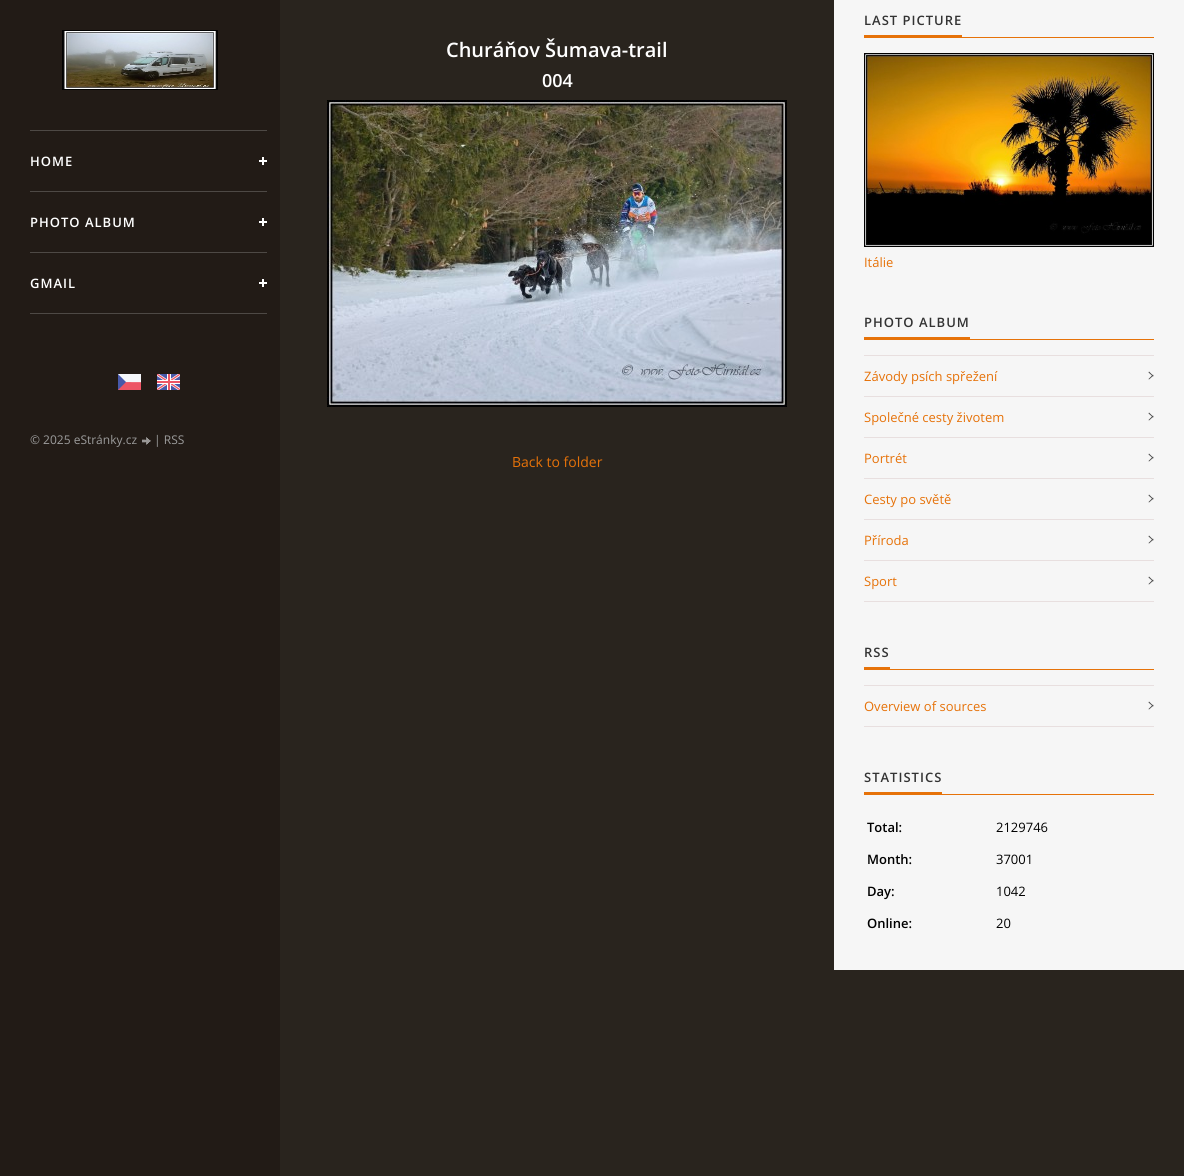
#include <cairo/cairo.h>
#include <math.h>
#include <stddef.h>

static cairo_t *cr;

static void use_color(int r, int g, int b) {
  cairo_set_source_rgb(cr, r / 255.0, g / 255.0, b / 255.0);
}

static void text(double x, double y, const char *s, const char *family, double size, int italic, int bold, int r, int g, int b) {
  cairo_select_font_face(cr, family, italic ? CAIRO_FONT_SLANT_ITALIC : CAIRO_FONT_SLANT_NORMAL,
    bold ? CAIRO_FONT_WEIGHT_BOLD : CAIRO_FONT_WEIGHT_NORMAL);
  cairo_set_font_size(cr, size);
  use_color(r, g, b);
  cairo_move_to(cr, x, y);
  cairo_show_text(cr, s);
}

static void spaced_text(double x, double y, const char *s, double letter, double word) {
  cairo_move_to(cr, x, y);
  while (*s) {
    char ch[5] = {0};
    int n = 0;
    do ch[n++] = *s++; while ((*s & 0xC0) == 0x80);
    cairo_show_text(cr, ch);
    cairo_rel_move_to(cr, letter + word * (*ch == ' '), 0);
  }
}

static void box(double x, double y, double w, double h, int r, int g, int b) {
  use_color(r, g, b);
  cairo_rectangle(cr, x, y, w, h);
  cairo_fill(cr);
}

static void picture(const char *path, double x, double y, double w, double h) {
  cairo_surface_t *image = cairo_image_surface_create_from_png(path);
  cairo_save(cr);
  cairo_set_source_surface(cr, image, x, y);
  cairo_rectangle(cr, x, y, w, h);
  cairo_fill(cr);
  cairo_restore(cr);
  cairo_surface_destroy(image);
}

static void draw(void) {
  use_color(41, 36, 30);
  cairo_paint(cr);
  box(0, 0, 280, 1176, 34, 27, 22);
  picture("img_01.png", 62, 30, 156, 60);
  box(30, 130, 237, 1, 78, 73, 69);
  box(259, 160, 8, 2, 255, 255, 255);
  box(262, 157, 2, 8, 255, 255, 255);
  box(30, 191, 237, 1, 78, 73, 69);
  box(259, 221, 8, 2, 255, 255, 255);
  box(262, 218, 2, 8, 255, 255, 255);
  box(30, 252, 237, 1, 78, 73, 69);
  box(30, 313, 237, 1, 78, 73, 69);
  box(259, 282, 8, 2, 255, 255, 255);
  box(262, 279, 2, 8, 255, 255, 255);
  picture("img_02.png", 118, 374, 23, 16);
  picture("img_03.png", 157, 374, 23, 16);
  picture("img_04.png", 142, 437, 9, 8);
  picture("img_05.png", 327, 100, 460, 307);
  box(834, 0, 350, 970, 246, 246, 246);
  box(864, 35, 98, 2, 230, 114, 9);
  box(864, 37, 290, 1, 230, 114, 9);
  picture("img_06.png", 864, 53, 290, 194);
  box(864, 337, 106, 2, 230, 114, 9);
  box(864, 339, 290, 1, 230, 114, 9);
  box(864, 355, 290, 1, 232, 223, 223);
  box(864, 396, 290, 1, 232, 223, 223);
  use_color(72, 72, 72);
  cairo_new_path(cr);
  cairo_move_to(cr, 1149, 371.5);
  cairo_line_to(cr, 1153.5, 376);
  cairo_line_to(cr, 1153, 376.5);
  cairo_line_to(cr, 1148.5, 372.5);
  cairo_close_path(cr);
  cairo_fill(cr);
  cairo_new_path(cr);
  cairo_move_to(cr, 1148.5, 379);
  cairo_line_to(cr, 1153, 374.5);
  cairo_line_to(cr, 1153.5, 375.5);
  cairo_line_to(cr, 1149, 379.5);
  cairo_close_path(cr);
  cairo_fill(cr);
  box(864, 437, 290, 1, 232, 223, 223);
  use_color(72, 72, 72);
  cairo_new_path(cr);
  cairo_move_to(cr, 1149, 412.5);
  cairo_line_to(cr, 1153.5, 417);
  cairo_line_to(cr, 1153, 417.5);
  cairo_line_to(cr, 1148.5, 413.5);
  cairo_close_path(cr);
  cairo_fill(cr);
  cairo_new_path(cr);
  cairo_move_to(cr, 1148.5, 420);
  cairo_line_to(cr, 1153, 415.5);
  cairo_line_to(cr, 1153.5, 416.5);
  cairo_line_to(cr, 1149, 420.5);
  cairo_close_path(cr);
  cairo_fill(cr);
  box(864, 478, 290, 1, 232, 223, 223);
  use_color(72, 72, 72);
  cairo_new_path(cr);
  cairo_move_to(cr, 1149, 453.5);
  cairo_line_to(cr, 1153.5, 458);
  cairo_line_to(cr, 1153, 458.5);
  cairo_line_to(cr, 1148.5, 454.5);
  cairo_close_path(cr);
  cairo_fill(cr);
  cairo_new_path(cr);
  cairo_move_to(cr, 1148.5, 461);
  cairo_line_to(cr, 1153, 456.5);
  cairo_line_to(cr, 1153.5, 457.5);
  cairo_line_to(cr, 1149, 461.5);
  cairo_close_path(cr);
  cairo_fill(cr);
  box(864, 519, 290, 1, 232, 223, 223);
  use_color(72, 72, 72);
  cairo_new_path(cr);
  cairo_move_to(cr, 1149, 494.5);
  cairo_line_to(cr, 1153.5, 499);
  cairo_line_to(cr, 1153, 499.5);
  cairo_line_to(cr, 1148.5, 495.5);
  cairo_close_path(cr);
  cairo_fill(cr);
  cairo_new_path(cr);
  cairo_move_to(cr, 1148.5, 502);
  cairo_line_to(cr, 1153, 497.5);
  cairo_line_to(cr, 1153.5, 498.5);
  cairo_line_to(cr, 1149, 502.5);
  cairo_close_path(cr);
  cairo_fill(cr);
  box(864, 560, 290, 1, 232, 223, 223);
  use_color(72, 72, 72);
  cairo_new_path(cr);
  cairo_move_to(cr, 1149, 535.5);
  cairo_line_to(cr, 1153.5, 540);
  cairo_line_to(cr, 1153, 540.5);
  cairo_line_to(cr, 1148.5, 536.5);
  cairo_close_path(cr);
  cairo_fill(cr);
  cairo_new_path(cr);
  cairo_move_to(cr, 1148.5, 543);
  cairo_line_to(cr, 1153, 538.5);
  cairo_line_to(cr, 1153.5, 539.5);
  cairo_line_to(cr, 1149, 543.5);
  cairo_close_path(cr);
  cairo_fill(cr);
  box(864, 601, 290, 1, 232, 223, 223);
  use_color(72, 72, 72);
  cairo_new_path(cr);
  cairo_move_to(cr, 1149, 576.5);
  cairo_line_to(cr, 1153.5, 581);
  cairo_line_to(cr, 1153, 581.5);
  cairo_line_to(cr, 1148.5, 577.5);
  cairo_close_path(cr);
  cairo_fill(cr);
  cairo_new_path(cr);
  cairo_move_to(cr, 1148.5, 584);
  cairo_line_to(cr, 1153, 579.5);
  cairo_line_to(cr, 1153.5, 580.5);
  cairo_line_to(cr, 1149, 584.5);
  cairo_close_path(cr);
  cairo_fill(cr);
  box(864, 667, 26, 2, 230, 114, 9);
  box(864, 669, 290, 1, 230, 114, 9);
  box(864, 685, 290, 1, 232, 223, 223);
  box(864, 726, 290, 1, 232, 223, 223);
  use_color(72, 72, 72);
  cairo_new_path(cr);
  cairo_move_to(cr, 1149, 701.5);
  cairo_line_to(cr, 1153.5, 706);
  cairo_line_to(cr, 1153, 706.5);
  cairo_line_to(cr, 1148.5, 702.5);
  cairo_close_path(cr);
  cairo_fill(cr);
  cairo_new_path(cr);
  cairo_move_to(cr, 1148.5, 709);
  cairo_line_to(cr, 1153, 704.5);
  cairo_line_to(cr, 1153.5, 705.5);
  cairo_line_to(cr, 1149, 709.5);
  cairo_close_path(cr);
  cairo_fill(cr);
  box(864, 792, 78, 2, 230, 114, 9);
  box(864, 794, 290, 1, 230, 114, 9);
  cairo_select_font_face(cr, "Open Sans SemiBold", CAIRO_FONT_SLANT_NORMAL, CAIRO_FONT_WEIGHT_NORMAL);
  cairo_set_font_size(cr, 13);
  use_color(255, 255, 255);
  spaced_text(30, 166, "HOME", 1, 0);
  spaced_text(30, 227, "PHOTO ALBUM", 1, 0);
  spaced_text(30, 288, "GMAIL", 1, 0);
  text(30, 444, "© 2025 eStránky.cz", "Open Sans", 12, 0, 0, 156, 156, 156);
  text(154, 444, "| RSS", "Open Sans", 12, 0, 0, 156, 156, 156);
  text(446, 57, "Churáňov Šumava-trail", "Open Sans SemiBold", 20, 0, 0, 255, 255, 255);
  text(542, 87, "004", "Open Sans SemiBold", 18, 0, 0, 255, 255, 255);
  text(512, 467, "Back to folder", "Open Sans", 14, 0, 0, 230, 114, 9);
  cairo_select_font_face(cr, "Open Sans SemiBold", CAIRO_FONT_SLANT_NORMAL, CAIRO_FONT_WEIGHT_NORMAL);
  cairo_set_font_size(cr, 13);
  use_color(51, 51, 51);
  spaced_text(864, 25, "LAST PICTURE", 1, 0);
  text(864, 267, "Itálie", "Open Sans", 13, 0, 0, 230, 114, 9);
  cairo_select_font_face(cr, "Open Sans SemiBold", CAIRO_FONT_SLANT_NORMAL, CAIRO_FONT_WEIGHT_NORMAL);
  use_color(51, 51, 51);
  spaced_text(864, 327, "PHOTO ALBUM", 1, 0);
  text(864, 381, "Závody psích spřežení", "Open Sans", 13, 0, 0, 230, 114, 9);
  text(864, 422, "Společné cesty životem", "Open Sans", 13, 0, 0, 230, 114, 9);
  text(864, 463, "Portrét", "Open Sans", 13, 0, 0, 230, 114, 9);
  text(864, 504, "Cesty po světě", "Open Sans", 13, 0, 0, 230, 114, 9);
  text(864, 545, "Příroda", "Open Sans", 13, 0, 0, 230, 114, 9);
  text(864, 586, "Sport", "Open Sans", 13, 0, 0, 230, 114, 9);
  cairo_select_font_face(cr, "Open Sans SemiBold", CAIRO_FONT_SLANT_NORMAL, CAIRO_FONT_WEIGHT_NORMAL);
  use_color(51, 51, 51);
  spaced_text(864, 657, "RSS", 1, 0);
  text(864, 711, "Overview of sources", "Open Sans", 13, 0, 0, 230, 114, 9);
  cairo_select_font_face(cr, "Open Sans SemiBold", CAIRO_FONT_SLANT_NORMAL, CAIRO_FONT_WEIGHT_NORMAL);
  use_color(51, 51, 51);
  spaced_text(864, 782, "STATISTICS", 1, 0);
  text(867, 832, "Total:", "Open Sans SemiBold", 13, 0, 0, 0, 0, 0);
  text(996, 832, "2129746", "Open Sans", 13, 0, 0, 0, 0, 0);
  text(867, 864, "Month:", "Open Sans SemiBold", 13, 0, 0, 0, 0, 0);
  text(996, 864, "37001", "Open Sans", 13, 0, 0, 0, 0, 0);
  text(867, 896, "Day:", "Open Sans SemiBold", 13, 0, 0, 0, 0, 0);
  text(996, 896, "1042", "Open Sans", 13, 0, 0, 0, 0, 0);
  text(867, 928, "Online:", "Open Sans SemiBold", 13, 0, 0, 0, 0, 0);
  text(996, 928, "20", "Open Sans", 13, 0, 0, 0, 0, 0);
}

int main(void) {
  cairo_surface_t *surface = cairo_image_surface_create(CAIRO_FORMAT_RGB24, 1184, 1176);
  cr = cairo_create(surface);
  cairo_font_options_t *options = cairo_font_options_create();
  cairo_font_options_set_hint_metrics(options, CAIRO_HINT_METRICS_OFF);
  cairo_font_options_set_hint_style(options, CAIRO_HINT_STYLE_NONE);
  cairo_set_font_options(cr, options);
  cairo_set_miter_limit(cr, 4);
  draw();
  cairo_surface_write_to_png(surface, "out.png");
  cairo_font_options_destroy(options);
  cairo_destroy(cr);
  cairo_surface_destroy(surface);
  return 0;
}
